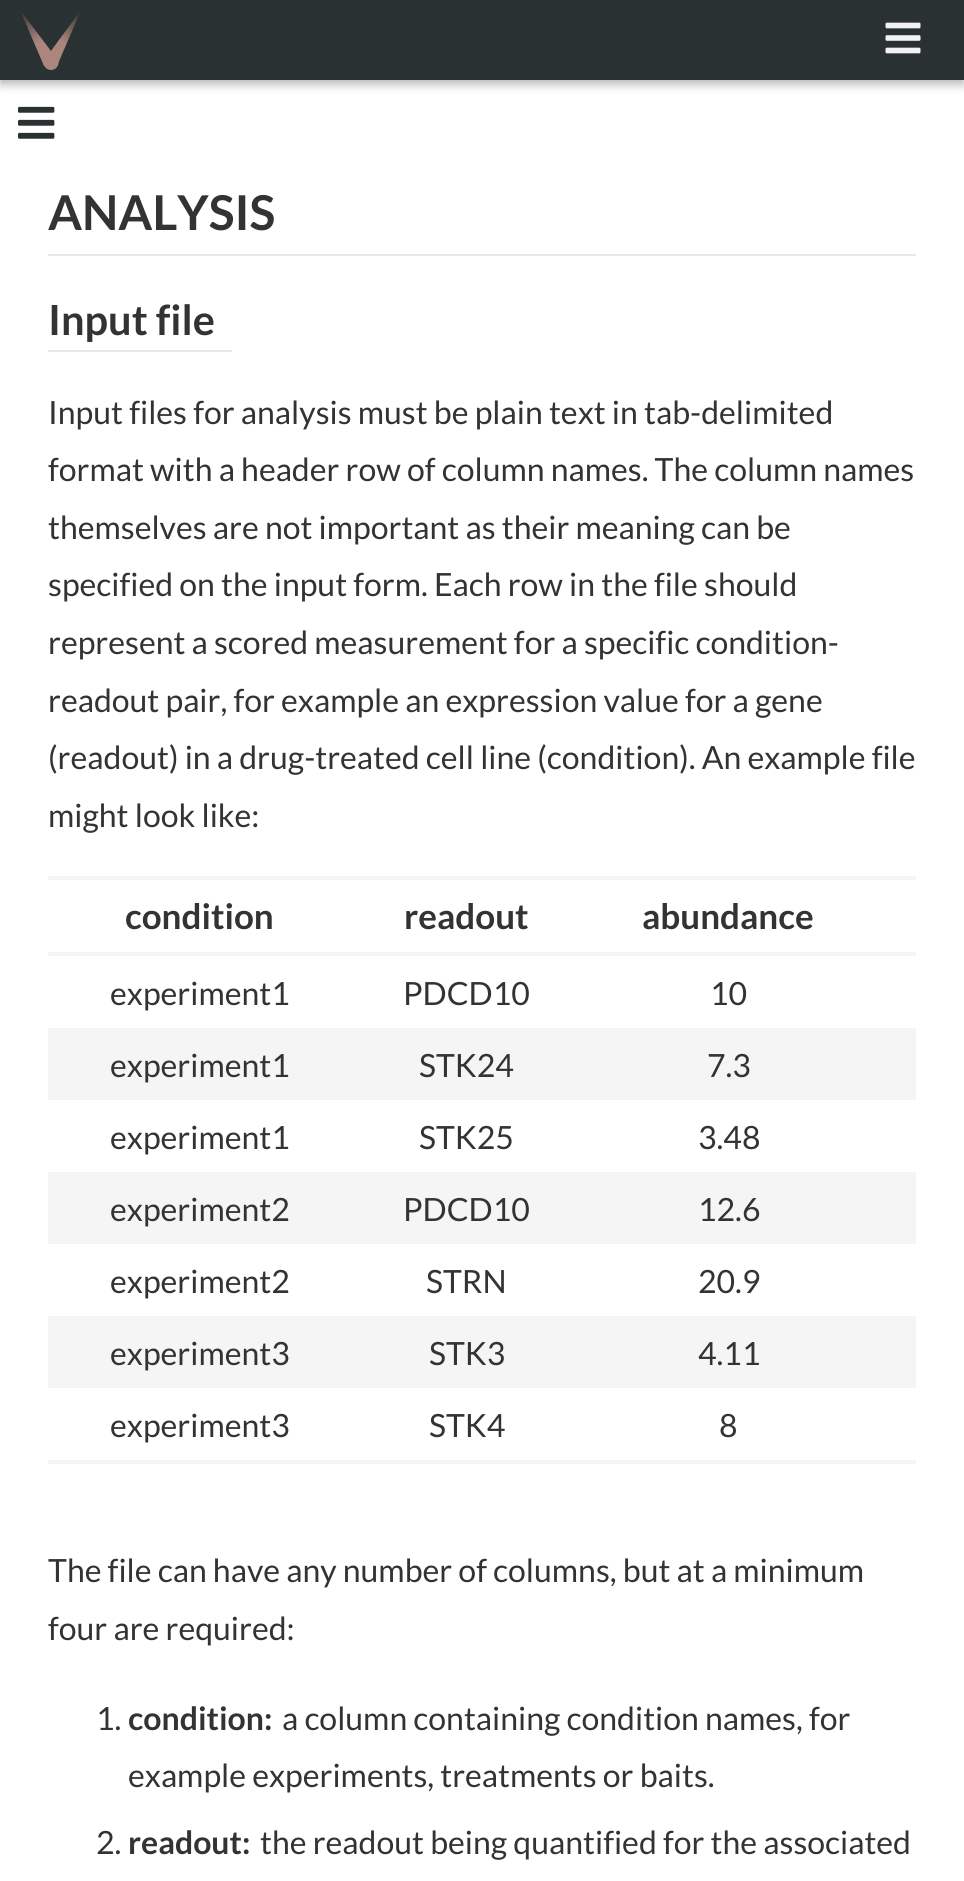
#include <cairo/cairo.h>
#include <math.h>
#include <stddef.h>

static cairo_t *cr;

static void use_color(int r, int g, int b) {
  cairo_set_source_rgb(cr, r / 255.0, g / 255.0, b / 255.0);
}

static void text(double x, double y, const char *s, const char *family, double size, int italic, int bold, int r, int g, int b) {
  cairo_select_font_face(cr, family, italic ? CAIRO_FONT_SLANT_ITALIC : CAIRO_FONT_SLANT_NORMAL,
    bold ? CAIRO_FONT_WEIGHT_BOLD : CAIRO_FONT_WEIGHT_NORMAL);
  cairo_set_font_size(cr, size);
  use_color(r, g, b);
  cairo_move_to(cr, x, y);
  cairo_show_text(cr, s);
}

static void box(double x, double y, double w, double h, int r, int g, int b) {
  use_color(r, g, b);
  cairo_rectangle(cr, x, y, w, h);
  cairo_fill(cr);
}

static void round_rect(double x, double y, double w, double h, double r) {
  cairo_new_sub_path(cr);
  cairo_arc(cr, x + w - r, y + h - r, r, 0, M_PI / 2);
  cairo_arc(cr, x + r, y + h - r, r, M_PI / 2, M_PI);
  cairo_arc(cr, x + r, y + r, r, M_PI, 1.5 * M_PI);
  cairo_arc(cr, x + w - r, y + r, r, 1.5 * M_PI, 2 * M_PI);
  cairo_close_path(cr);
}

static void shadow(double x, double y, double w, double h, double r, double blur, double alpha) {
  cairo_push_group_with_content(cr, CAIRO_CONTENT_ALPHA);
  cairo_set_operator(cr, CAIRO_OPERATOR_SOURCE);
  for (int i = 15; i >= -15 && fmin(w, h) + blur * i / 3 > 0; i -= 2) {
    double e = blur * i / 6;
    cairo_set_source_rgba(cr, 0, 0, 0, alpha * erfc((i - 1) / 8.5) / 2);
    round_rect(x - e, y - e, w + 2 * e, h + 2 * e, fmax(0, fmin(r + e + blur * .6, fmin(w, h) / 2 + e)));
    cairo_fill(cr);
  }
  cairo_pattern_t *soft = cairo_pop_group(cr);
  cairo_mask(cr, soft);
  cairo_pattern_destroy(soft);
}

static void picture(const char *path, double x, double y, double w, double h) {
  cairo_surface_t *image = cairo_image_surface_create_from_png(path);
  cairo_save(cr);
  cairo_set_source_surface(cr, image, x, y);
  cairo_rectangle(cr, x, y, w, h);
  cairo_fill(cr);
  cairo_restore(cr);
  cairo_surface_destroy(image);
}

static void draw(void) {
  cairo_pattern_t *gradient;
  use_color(255, 255, 255);
  cairo_paint(cr);
  use_color(0, 0, 0);
  shadow(0, 4, 964, 80, 0, 5, 0.3);
  box(0, 0, 964, 80, 42, 49, 50);
  gradient = cairo_pattern_create_linear(51, 62, 20, 10);
  cairo_pattern_add_color_stop_rgba(gradient, 0.39, 0.675, 0.525, 0.486, 1);
  cairo_pattern_add_color_stop_rgba(gradient, 1, 0.165, 0.192, 0.196, 1);
  cairo_set_source(cr, gradient);
  cairo_pattern_destroy(gradient);
  cairo_new_path(cr);
  cairo_move_to(cr, 44, 66);
  cairo_line_to(cr, 20, 10);
  cairo_line_to(cr, 57, 59);
  cairo_close_path(cr);
  cairo_fill(cr);
  use_color(172, 134, 124);
  cairo_arc(cr, 51, 62.5, 7.5, 0, 2 * M_PI);
  cairo_fill(cr);
  gradient = cairo_pattern_create_linear(51, 63, 81, 10);
  cairo_pattern_add_color_stop_rgba(gradient, 0.39, 0.675, 0.525, 0.486, 1);
  cairo_pattern_add_color_stop_rgba(gradient, 1, 0.675, 0.525, 0.486, 0);
  cairo_set_source(cr, gradient);
  cairo_pattern_destroy(gradient);
  cairo_new_path(cr);
  cairo_move_to(cr, 45, 59);
  cairo_line_to(cr, 81, 10);
  cairo_line_to(cr, 57, 66);
  cairo_close_path(cr);
  cairo_fill(cr);
  picture("img_01.png", 885, 22, 36, 32);
  picture("img_02.png", 18, 106, 37, 33);
  box(48, 254, 868, 2, 232, 232, 232);
  box(48, 350, 184, 2, 232, 232, 232);
  box(48, 876, 868, 4, 245, 245, 245);
  box(48, 952, 868, 4, 245, 245, 245);
  box(48, 1460, 868, 4, 245, 245, 245);
  box(48, 1028, 868, 72, 245, 245, 245);
  box(48, 1172, 868, 72, 245, 245, 245);
  box(48, 1316, 868, 72, 245, 245, 245);
  text(48, 230, "ANALYSIS", "Lato", 48, 0, 1, 51, 51, 51);
  text(48, 335, "Input file", "Lato", 41.5, 0, 1, 51, 51, 51);
  text(48, 424, "Input files for analysis must be plain text in tab-delimited", "Lato", 32, 0, 0, 51, 51, 51);
  text(48, 481, "format with a header row of column names. The column names", "Lato", 32, 0, 0, 51, 51, 51);
  text(48, 539, "themselves are not important as their meaning can be", "Lato", 32, 0, 0, 51, 51, 51);
  text(48, 596, "specified on the input form. Each row in the file should", "Lato", 32, 0, 0, 51, 51, 51);
  text(48, 654, "represent a scored measurement for a specific condition-", "Lato", 32, 0, 0, 51, 51, 51);
  text(48, 712, "readout pair, for example an expression value for a gene", "Lato", 32, 0, 0, 51, 51, 51);
  text(48, 769, "(readout) in a drug-treated cell line (condition). An example file", "Lato", 32, 0, 0, 51, 51, 51);
  text(48, 827, "might look like:", "Lato", 32, 0, 0, 51, 51, 51);
  text(125, 929, "condition", "Lato", 35, 0, 1, 51, 51, 51);
  text(404, 929, "readout", "Lato", 35, 0, 1, 51, 51, 51);
  text(642, 929, "abundance", "Lato", 35, 0, 1, 51, 51, 51);
  text(110, 1005, "experiment1", "Lato", 32, 0, 0, 51, 51, 51);
  text(403, 1005, "PDCD10", "Lato", 32, 0, 0, 51, 51, 51);
  text(710, 1005, "10", "Lato", 32, 0, 0, 51, 51, 51);
  text(110, 1077, "experiment1", "Lato", 32, 0, 0, 51, 51, 51);
  text(419, 1077, "STK24", "Lato", 32, 0, 0, 51, 51, 51);
  text(707, 1077, "7.3", "Lato", 32, 0, 0, 51, 51, 51);
  text(110, 1149, "experiment1", "Lato", 32, 0, 0, 51, 51, 51);
  text(419, 1149, "STK25", "Lato", 32, 0, 0, 51, 51, 51);
  text(698, 1149, "3.48", "Lato", 32, 0, 0, 51, 51, 51);
  text(110, 1221, "experiment2", "Lato", 32, 0, 0, 51, 51, 51);
  text(403, 1221, "PDCD10", "Lato", 32, 0, 0, 51, 51, 51);
  text(698, 1221, "12.6", "Lato", 32, 0, 0, 51, 51, 51);
  text(110, 1293, "experiment2", "Lato", 32, 0, 0, 51, 51, 51);
  text(426, 1293, "STRN", "Lato", 32, 0, 0, 51, 51, 51);
  text(698, 1293, "20.9", "Lato", 32, 0, 0, 51, 51, 51);
  text(110, 1365, "experiment3", "Lato", 32, 0, 0, 51, 51, 51);
  text(429, 1365, "STK3", "Lato", 32, 0, 0, 51, 51, 51);
  text(698, 1365, "4.11", "Lato", 32, 0, 0, 51, 51, 51);
  text(110, 1437, "experiment3", "Lato", 32, 0, 0, 51, 51, 51);
  text(429, 1437, "STK4", "Lato", 32, 0, 0, 51, 51, 51);
  text(719, 1437, "8", "Lato", 32, 0, 0, 51, 51, 51);
  text(48, 1582, "The file can have any number of columns, but at a minimum", "Lato", 32, 0, 0, 51, 51, 51);
  text(48, 1640, "four are required:", "Lato", 32, 0, 0, 51, 51, 51);
  text(96, 1730, "1.", "Lato", 32, 0, 0, 51, 51, 51);
  text(128, 1730, "condition:", "Lato", 32, 0, 1, 51, 51, 51);
  text(282, 1730, "a column containing condition names, for", "Lato", 32, 0, 0, 51, 51, 51);
  text(128, 1787, "example experiments, treatments or baits.", "Lato", 32, 0, 0, 51, 51, 51);
  text(96, 1854, "2.", "Lato", 32, 0, 0, 51, 51, 51);
  text(128, 1854, "readout:", "Lato", 32, 0, 1, 51, 51, 51);
  text(260, 1854, "the readout being quantified for the associated", "Lato", 32, 0, 0, 51, 51, 51);
}

int main(void) {
  cairo_surface_t *surface = cairo_image_surface_create(CAIRO_FORMAT_RGB24, 964, 1881);
  cr = cairo_create(surface);
  cairo_font_options_t *options = cairo_font_options_create();
  cairo_font_options_set_hint_metrics(options, CAIRO_HINT_METRICS_OFF);
  cairo_font_options_set_hint_style(options, CAIRO_HINT_STYLE_NONE);
  cairo_set_font_options(cr, options);
  cairo_set_miter_limit(cr, 4);
  draw();
  cairo_surface_write_to_png(surface, "out.png");
  cairo_font_options_destroy(options);
  cairo_destroy(cr);
  cairo_surface_destroy(surface);
  return 0;
}
